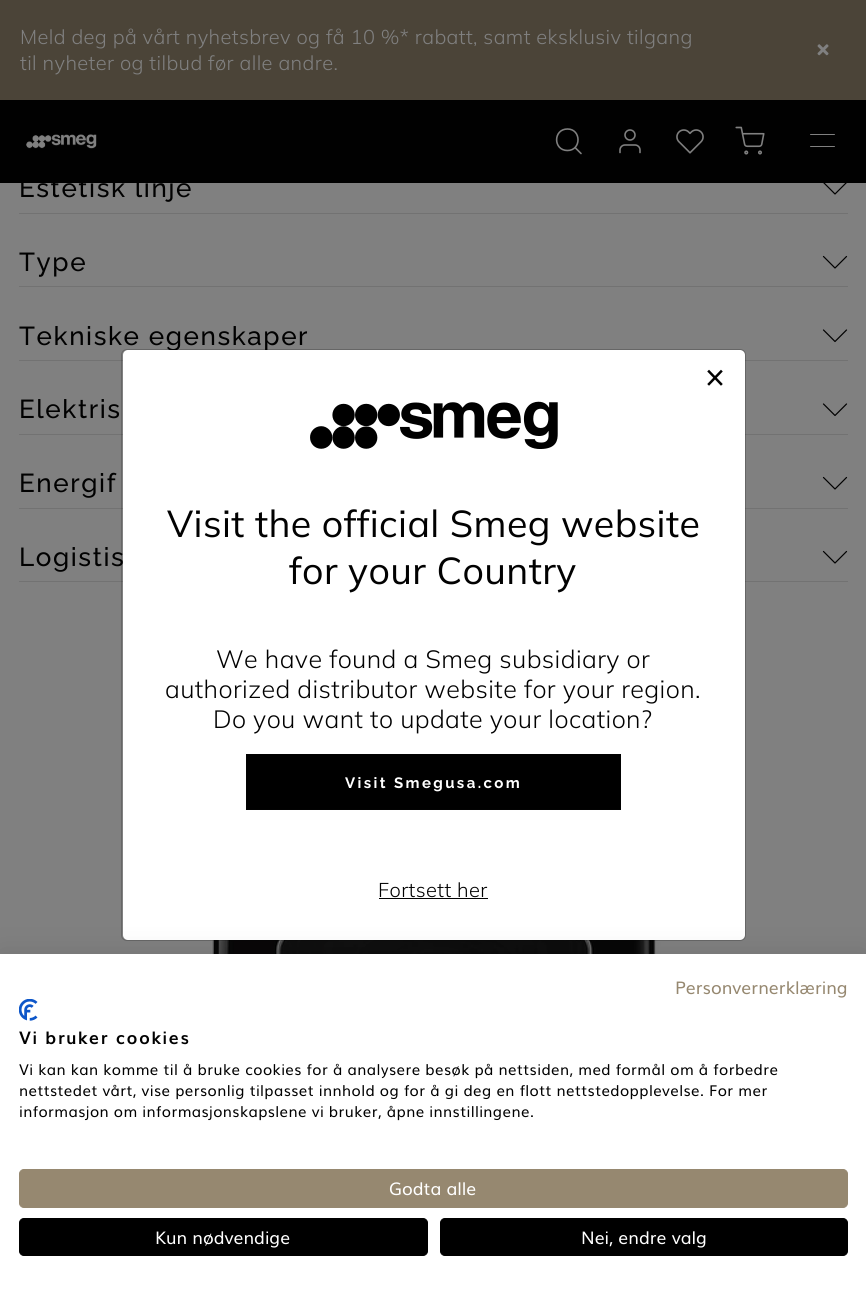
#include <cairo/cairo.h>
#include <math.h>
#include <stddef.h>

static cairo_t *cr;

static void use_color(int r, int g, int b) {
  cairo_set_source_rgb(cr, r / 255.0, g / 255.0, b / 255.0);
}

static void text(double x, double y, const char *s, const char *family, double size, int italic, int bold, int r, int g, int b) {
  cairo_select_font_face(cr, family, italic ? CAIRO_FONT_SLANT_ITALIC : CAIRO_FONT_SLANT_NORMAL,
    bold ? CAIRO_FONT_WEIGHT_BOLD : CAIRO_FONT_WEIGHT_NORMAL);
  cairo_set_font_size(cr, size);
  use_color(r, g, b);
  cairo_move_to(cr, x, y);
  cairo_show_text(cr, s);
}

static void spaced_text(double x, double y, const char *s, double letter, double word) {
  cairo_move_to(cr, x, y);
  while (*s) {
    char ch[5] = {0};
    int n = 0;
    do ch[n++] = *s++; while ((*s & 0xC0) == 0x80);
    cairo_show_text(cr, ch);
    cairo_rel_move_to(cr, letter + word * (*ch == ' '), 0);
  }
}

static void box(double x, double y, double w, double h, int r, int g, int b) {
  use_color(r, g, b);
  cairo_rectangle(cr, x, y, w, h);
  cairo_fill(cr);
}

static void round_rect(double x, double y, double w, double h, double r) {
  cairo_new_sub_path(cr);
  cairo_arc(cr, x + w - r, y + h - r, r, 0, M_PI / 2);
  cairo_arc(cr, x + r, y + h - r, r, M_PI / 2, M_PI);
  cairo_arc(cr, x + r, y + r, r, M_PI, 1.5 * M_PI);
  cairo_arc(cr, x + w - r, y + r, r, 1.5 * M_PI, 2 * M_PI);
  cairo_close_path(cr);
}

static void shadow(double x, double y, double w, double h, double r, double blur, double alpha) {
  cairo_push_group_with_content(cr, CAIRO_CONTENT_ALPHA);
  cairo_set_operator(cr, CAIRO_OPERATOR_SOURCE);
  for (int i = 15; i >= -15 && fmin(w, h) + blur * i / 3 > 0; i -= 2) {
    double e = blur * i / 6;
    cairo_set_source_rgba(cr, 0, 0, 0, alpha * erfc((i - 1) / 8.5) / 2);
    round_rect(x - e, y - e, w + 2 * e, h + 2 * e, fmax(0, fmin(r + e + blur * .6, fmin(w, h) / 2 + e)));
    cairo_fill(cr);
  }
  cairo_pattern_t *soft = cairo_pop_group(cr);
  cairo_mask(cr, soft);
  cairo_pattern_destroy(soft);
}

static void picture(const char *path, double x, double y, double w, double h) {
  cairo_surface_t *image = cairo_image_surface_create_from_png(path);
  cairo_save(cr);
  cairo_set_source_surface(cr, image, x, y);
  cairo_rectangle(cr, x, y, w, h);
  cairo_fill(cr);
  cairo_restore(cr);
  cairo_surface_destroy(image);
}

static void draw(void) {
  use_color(128, 128, 128);
  cairo_paint(cr);
  box(0, 0, 866, 100, 75, 68, 56);
  picture("img_01.png", 817, 44, 12, 12);
  cairo_new_path(cr);
  cairo_move_to(cr, 823.5, 182.5);
  cairo_line_to(cr, 835, 194);
  cairo_line_to(cr, 846.5, 182.5);
  use_color(0, 0, 0);
  cairo_set_line_width(cr, 1.2);
  cairo_set_line_cap(cr, CAIRO_LINE_CAP_ROUND);
  cairo_set_line_join(cr, CAIRO_LINE_JOIN_ROUND);
  cairo_stroke(cr);
  box(0, 100, 866, 83, 1, 1, 1);
  picture("img_02.png", 26, 134, 71, 15);
  cairo_new_path(cr);
  cairo_move_to(cr, 567.5, 150.5);
  cairo_curve_to(cr, 581.5, 150.5, 581.5, 129, 567.5, 129);
  cairo_curve_to(cr, 553, 129, 553, 150.5, 567.5, 150.5);
  cairo_close_path(cr);
  cairo_move_to(cr, 581, 153.5);
  cairo_line_to(cr, 575, 147.5);
  use_color(128, 128, 128);
  cairo_set_line_width(cr, 1.6);
  cairo_stroke(cr);
  picture("img_03.png", 619, 129, 22, 25);
  picture("img_04.png", 676, 129, 28, 25);
  picture("img_05.png", 735, 126, 30, 29);
  round_rect(810, 134, 25, 1, 0.5);
  cairo_fill(cr);
  round_rect(810, 146, 25, 1, 0.5);
  cairo_fill(cr);
  box(19, 213, 829, 1, 114, 114, 114);
  box(19, 286, 829, 1, 114, 114, 114);
  cairo_new_path(cr);
  cairo_move_to(cr, 823.5, 256.5);
  cairo_line_to(cr, 835, 268);
  cairo_line_to(cr, 846.5, 256.5);
  use_color(0, 0, 0);
  cairo_set_line_width(cr, 1.2);
  cairo_stroke(cr);
  box(19, 360, 829, 1, 114, 114, 114);
  cairo_new_path(cr);
  cairo_move_to(cr, 823.5, 330);
  cairo_line_to(cr, 835, 341.5);
  cairo_line_to(cr, 846.5, 330);
  use_color(0, 0, 0);
  cairo_stroke(cr);
  box(19, 434, 829, 1, 114, 114, 114);
  cairo_new_path(cr);
  cairo_move_to(cr, 823.5, 404);
  cairo_line_to(cr, 835, 415.5);
  cairo_line_to(cr, 846.5, 404);
  use_color(0, 0, 0);
  cairo_stroke(cr);
  box(19, 508, 829, 1, 114, 114, 114);
  cairo_new_path(cr);
  cairo_move_to(cr, 823.5, 477.5);
  cairo_line_to(cr, 835, 489);
  cairo_line_to(cr, 846.5, 477.5);
  use_color(0, 0, 0);
  cairo_stroke(cr);
  box(19, 581, 829, 1, 114, 114, 114);
  cairo_new_path(cr);
  cairo_move_to(cr, 823.5, 551.5);
  cairo_line_to(cr, 835, 563);
  cairo_line_to(cr, 846.5, 551.5);
  use_color(0, 0, 0);
  cairo_stroke(cr);
  picture("img_06.png", 210, 940, 451, 14);
  cairo_select_font_face(cr, "Mulish Light", CAIRO_FONT_SLANT_NORMAL, CAIRO_FONT_WEIGHT_NORMAL);
  cairo_set_font_size(cr, 20);
  use_color(128, 128, 128);
  spaced_text(20, 44, "Meld deg på vårt nyhetsbrev og få 10 %* rabatt, samt eksklusiv tilgang", 0.4, 0);
  spaced_text(20, 70, "til nyheter og tilbud før alle andre.", 0.4, 0);
  cairo_select_font_face(cr, "Raleway Medium", CAIRO_FONT_SLANT_NORMAL, CAIRO_FONT_WEIGHT_NORMAL);
  cairo_set_font_size(cr, 26);
  use_color(1, 1, 1);
  spaced_text(19, 197, "Estetisk linje", 1.6, 0);
  spaced_text(19, 271, "Type", 1.6, 0);
  spaced_text(19, 345, "Tekniske egenskaper", 1.6, 0);
  spaced_text(19, 418, "Elektris", 1.6, 0);
  spaced_text(19, 492, "Energif", 1.6, 0);
  spaced_text(19, 566, "Logistis", 1.6, 0);
  use_color(255, 255, 255);
  round_rect(123, 350, 622, 590, 5);
  cairo_fill(cr);
  round_rect(121.5, 349.5, 624, 591, 5.5);
  cairo_set_source_rgba(cr, 0, 0, 0, 0.2);
  cairo_set_line_width(cr, 1);
  cairo_set_line_cap(cr, CAIRO_LINE_CAP_BUTT);
  cairo_set_line_join(cr, CAIRO_LINE_JOIN_MITER);
  cairo_stroke(cr);
  cairo_new_path(cr);
  cairo_move_to(cr, 709, 371.5);
  cairo_line_to(cr, 721, 384);
  cairo_move_to(cr, 709, 384);
  cairo_line_to(cr, 721, 371.5);
  use_color(2, 2, 2);
  cairo_set_line_width(cr, 2.5);
  cairo_set_line_cap(cr, CAIRO_LINE_CAP_SQUARE);
  cairo_stroke(cr);
  picture("img_07.png", 310, 401, 248, 48);
  cairo_select_font_face(cr, "Mulish", CAIRO_FONT_SLANT_NORMAL, CAIRO_FONT_WEIGHT_NORMAL);
  cairo_set_font_size(cr, 37.5);
  use_color(1, 1, 1);
  spaced_text(167, 537, "Visit the official Smeg website", 0.4, 0);
  spaced_text(289, 584, "for your Country", 0.4, 0);
  cairo_select_font_face(cr, "Mulish Light", CAIRO_FONT_SLANT_NORMAL, CAIRO_FONT_WEIGHT_NORMAL);
  cairo_set_font_size(cr, 25);
  spaced_text(216, 668, "We have found a Smeg subsidiary or", 0.4, 0);
  spaced_text(165, 698, "authorized distributor website for your region.", 0.4, 0);
  spaced_text(213, 728, "Do you want to update your location?", 0.4, 0);
  use_color(0, 0, 0);
  cairo_rectangle(cr, 246.5, 754.5, 374, 55);
  cairo_fill_preserve(cr);
  use_color(2, 2, 2);
  cairo_set_line_width(cr, 1);
  cairo_set_line_cap(cr, CAIRO_LINE_CAP_BUTT);
  cairo_stroke(cr);
  cairo_select_font_face(cr, "Raleway", CAIRO_FONT_SLANT_NORMAL, CAIRO_FONT_WEIGHT_BOLD);
  cairo_set_font_size(cr, 15);
  use_color(255, 255, 255);
  spaced_text(345, 788, "Visit Smegusa.com", 2.4, 0);
  cairo_select_font_face(cr, "Mulish Light", CAIRO_FONT_SLANT_NORMAL, CAIRO_FONT_WEIGHT_NORMAL);
  cairo_set_font_size(cr, 20);
  use_color(1, 1, 1);
  spaced_text(378, 897, "Fortsett her", 0.4, 0);
  box(379, 898, 109, 1, 2, 2, 2);
  use_color(0, 0, 0);
  shadow(0, 954, 866, 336, 0, 15, 0.1);
  box(0, 954, 866, 335, 255, 255, 255);
  text(675, 994, "Personvernerklæring", "Muli", 17.5, 0, 0, 150, 136, 112);
  picture("img_08.png", 19, 999, 19, 22);
  cairo_select_font_face(cr, "Muli", CAIRO_FONT_SLANT_NORMAL, CAIRO_FONT_WEIGHT_BOLD);
  use_color(1, 1, 1);
  spaced_text(19, 1044, "Vi bruker cookies", 1.6, 0);
  cairo_select_font_face(cr, "Muli", CAIRO_FONT_SLANT_NORMAL, CAIRO_FONT_WEIGHT_NORMAL);
  cairo_set_font_size(cr, 15);
  spaced_text(19, 1075, "Vi kan kan komme til å bruke cookies for å analysere besøk på nettsiden, med formål om å forbedre", 0.4, 0);
  spaced_text(19, 1096, "nettstedet vårt, vise personlig tilpasset innhold og for å gi deg en flott nettstedopplevelse. For mer", 0.4, 0);
  spaced_text(19, 1117, "informasjon om informasjonskapslene vi bruker, åpne innstillingene.", 0.4, 0);
  use_color(150, 136, 112);
  round_rect(19.5, 1169.5, 828, 38, 4.5);
  cairo_fill_preserve(cr);
  cairo_stroke(cr);
  text(389, 1195, "Godta alle", "Muli", 17.5, 0, 0, 255, 255, 255);
  use_color(0, 0, 0);
  round_rect(19.5, 1218.5, 408, 37, 4.5);
  cairo_fill_preserve(cr);
  cairo_stroke(cr);
  text(155, 1244, "Kun nødvendige", "Muli", 17.5, 0, 0, 255, 255, 255);
  use_color(0, 0, 0);
  round_rect(440.5, 1218.5, 407, 37, 4.5);
  cairo_fill_preserve(cr);
  cairo_stroke(cr);
  text(581, 1244, "Nei, endre valg", "Muli", 17.5, 0, 0, 255, 255, 255);
}

int main(void) {
  cairo_surface_t *surface = cairo_image_surface_create(CAIRO_FORMAT_RGB24, 866, 1289);
  cr = cairo_create(surface);
  cairo_font_options_t *options = cairo_font_options_create();
  cairo_font_options_set_hint_metrics(options, CAIRO_HINT_METRICS_OFF);
  cairo_font_options_set_hint_style(options, CAIRO_HINT_STYLE_NONE);
  cairo_set_font_options(cr, options);
  cairo_set_miter_limit(cr, 4);
  draw();
  cairo_surface_write_to_png(surface, "out.png");
  cairo_font_options_destroy(options);
  cairo_destroy(cr);
  cairo_surface_destroy(surface);
  return 0;
}
